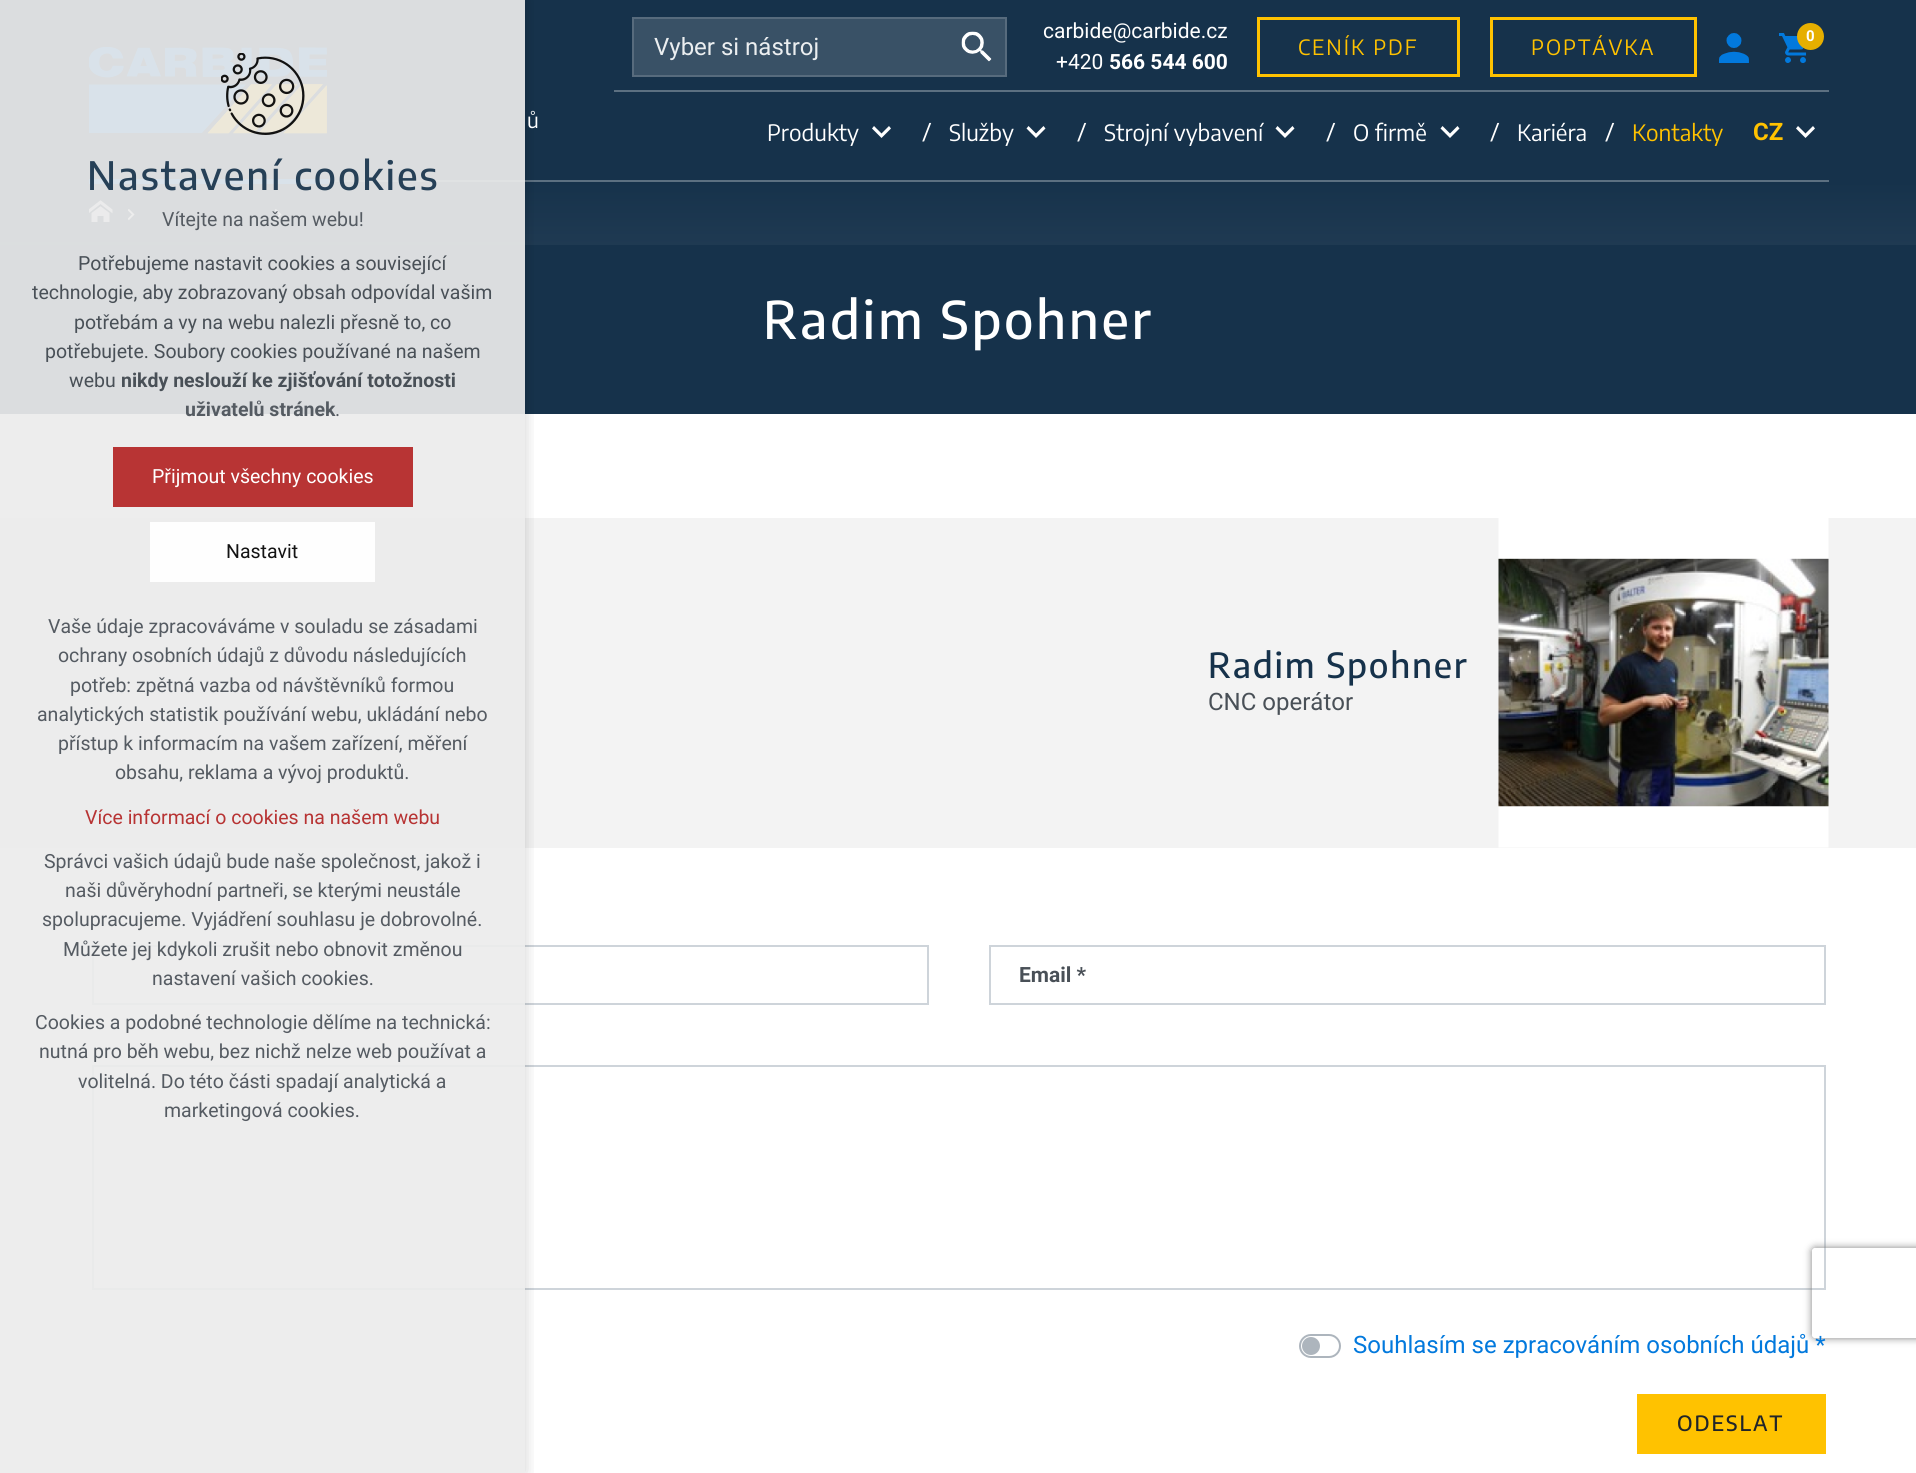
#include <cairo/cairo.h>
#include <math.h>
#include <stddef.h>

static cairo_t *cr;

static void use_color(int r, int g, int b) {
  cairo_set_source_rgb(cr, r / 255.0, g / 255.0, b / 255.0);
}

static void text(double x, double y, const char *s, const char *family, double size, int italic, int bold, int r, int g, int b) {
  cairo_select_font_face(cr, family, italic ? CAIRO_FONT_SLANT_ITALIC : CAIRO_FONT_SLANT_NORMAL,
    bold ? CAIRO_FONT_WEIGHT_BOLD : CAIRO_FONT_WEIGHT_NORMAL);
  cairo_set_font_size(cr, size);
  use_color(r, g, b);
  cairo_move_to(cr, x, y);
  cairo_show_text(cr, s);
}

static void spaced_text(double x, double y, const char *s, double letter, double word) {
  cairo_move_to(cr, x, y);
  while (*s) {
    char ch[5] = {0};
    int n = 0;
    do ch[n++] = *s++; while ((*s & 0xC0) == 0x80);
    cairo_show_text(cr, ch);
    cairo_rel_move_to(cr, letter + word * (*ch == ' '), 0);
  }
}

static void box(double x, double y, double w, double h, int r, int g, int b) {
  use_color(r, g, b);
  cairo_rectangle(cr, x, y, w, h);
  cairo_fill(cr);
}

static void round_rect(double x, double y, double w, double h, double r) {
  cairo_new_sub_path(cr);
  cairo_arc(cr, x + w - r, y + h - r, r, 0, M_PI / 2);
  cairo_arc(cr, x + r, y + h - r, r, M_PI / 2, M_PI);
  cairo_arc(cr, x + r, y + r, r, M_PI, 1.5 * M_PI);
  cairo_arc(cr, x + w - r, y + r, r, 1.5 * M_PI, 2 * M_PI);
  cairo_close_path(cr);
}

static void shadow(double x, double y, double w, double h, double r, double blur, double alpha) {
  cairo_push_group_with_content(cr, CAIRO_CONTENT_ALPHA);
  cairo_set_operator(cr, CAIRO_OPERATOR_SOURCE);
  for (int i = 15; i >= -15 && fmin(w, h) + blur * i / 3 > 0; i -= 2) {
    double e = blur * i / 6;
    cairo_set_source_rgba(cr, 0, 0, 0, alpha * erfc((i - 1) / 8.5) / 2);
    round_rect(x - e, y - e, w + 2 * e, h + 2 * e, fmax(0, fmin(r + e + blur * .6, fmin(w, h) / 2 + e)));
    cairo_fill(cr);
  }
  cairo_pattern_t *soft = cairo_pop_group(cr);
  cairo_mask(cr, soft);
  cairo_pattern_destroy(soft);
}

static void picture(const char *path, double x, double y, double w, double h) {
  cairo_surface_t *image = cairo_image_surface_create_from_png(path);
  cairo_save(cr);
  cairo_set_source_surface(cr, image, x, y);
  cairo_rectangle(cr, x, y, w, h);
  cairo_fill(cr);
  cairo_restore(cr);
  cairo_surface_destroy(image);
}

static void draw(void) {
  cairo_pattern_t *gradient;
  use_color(255, 255, 255);
  cairo_paint(cr);
  box(0, 0, 1916, 182, 22, 50, 75);
  box(329, 180, 1500, 2, 92, 112, 129);
  picture("img_02.png", 89, 47, 238, 87);
  gradient = cairo_pattern_create_linear(959, 181, 959, 245);
  cairo_pattern_add_color_stop_rgba(gradient, 0, 0.086, 0.196, 0.294, 1);
  cairo_pattern_add_color_stop_rgba(gradient, 1, 0.122, 0.227, 0.322, 1);
  cairo_set_source(cr, gradient);
  cairo_pattern_destroy(gradient);
  cairo_rectangle(cr, 0, 182, 1916, 63);
  cairo_fill(cr);
  box(89, 179, 240, 5, 2, 121, 221);
  picture("img_06.png", 89, 200, 24, 22);
  picture("img_07.png", 128, 209, 7, 12);
  picture("img_07.png", 275, 209, 7, 12);
  box(0, 245, 1916, 169, 22, 50, 75);
  box(0, 518, 1916, 330, 243, 243, 243);
  cairo_rectangle(cr, 93, 946, 835, 58);
  use_color(206, 212, 218);
  cairo_stroke(cr);
  cairo_rectangle(cr, 93, 1066, 1732, 223);
  cairo_stroke(cr);
  cairo_save(cr);
  cairo_rectangle(cr, 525, 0, 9, 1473);
  cairo_clip(cr);
  use_color(1, 1, 1);
  shadow(0, 0, 525, 1473, 0, 7.5, 0.18);
  cairo_restore(cr);
  cairo_set_source_rgba(cr, 0.922, 0.922, 0.922, 0.92);
  cairo_rectangle(cr, 0, 0, 525, 1473);
  cairo_fill(cr);
  picture("img_01.png", 221, 53, 84, 82);
  box(113, 447, 300, 60, 184, 52, 52);
  box(150, 522, 225, 60, 254, 254, 254);
  use_color(57, 81, 102);
  cairo_rectangle(cr, 633, 18, 373, 58);
  cairo_fill_preserve(cr);
  use_color(87, 107, 125);
  cairo_stroke(cr);
  picture("img_03.png", 961, 31, 31, 31);
  cairo_rectangle(cr, 1258.5, 18.5, 200, 57);
  use_color(255, 194, 0);
  cairo_set_line_width(cr, 3);
  cairo_stroke(cr);
  cairo_rectangle(cr, 1491.5, 18.5, 204, 57);
  cairo_stroke(cr);
  picture("img_04.png", 1719, 33, 30, 30);
  picture("img_05.png", 1779, 33, 28, 30);
  use_color(230, 175, 0);
  cairo_arc(cr, 1810.5, 36.5, 13.5, 0, 2 * M_PI);
  cairo_fill(cr);
  box(614, 90, 1215, 2, 92, 112, 129);
  use_color(255, 255, 255);
  cairo_new_path(cr);
  cairo_move_to(cr, 874, 126);
  cairo_line_to(cr, 881.5, 133.5);
  cairo_line_to(cr, 889, 126);
  cairo_line_to(cr, 891, 128.5);
  cairo_line_to(cr, 881.5, 138);
  cairo_line_to(cr, 872, 128.5);
  cairo_close_path(cr);
  cairo_fill(cr);
  cairo_new_path(cr);
  cairo_move_to(cr, 1028.5, 126);
  cairo_line_to(cr, 1036, 133.5);
  cairo_line_to(cr, 1043.5, 126);
  cairo_line_to(cr, 1045.5, 128.5);
  cairo_line_to(cr, 1036, 138);
  cairo_line_to(cr, 1026.5, 128.5);
  cairo_close_path(cr);
  cairo_fill(cr);
  cairo_new_path(cr);
  cairo_move_to(cr, 1277.5, 126);
  cairo_line_to(cr, 1285, 133.5);
  cairo_line_to(cr, 1292.5, 126);
  cairo_line_to(cr, 1294.5, 128.5);
  cairo_line_to(cr, 1285, 138);
  cairo_line_to(cr, 1275.5, 128.5);
  cairo_close_path(cr);
  cairo_fill(cr);
  cairo_new_path(cr);
  cairo_move_to(cr, 1442.5, 126);
  cairo_line_to(cr, 1450, 133.5);
  cairo_line_to(cr, 1457.5, 126);
  cairo_line_to(cr, 1459.5, 128.5);
  cairo_line_to(cr, 1450, 138);
  cairo_line_to(cr, 1440.5, 128.5);
  cairo_close_path(cr);
  cairo_fill(cr);
  cairo_new_path(cr);
  cairo_move_to(cr, 1798, 126);
  cairo_line_to(cr, 1805.5, 133.5);
  cairo_line_to(cr, 1813, 126);
  cairo_line_to(cr, 1815, 128.5);
  cairo_line_to(cr, 1805.5, 138);
  cairo_line_to(cr, 1796, 128.5);
  cairo_close_path(cr);
  cairo_fill(cr);
  picture("img_08.png", 1498, 518, 331, 330);
  cairo_rectangle(cr, 990, 946, 835, 58);
  use_color(206, 212, 218);
  cairo_set_line_width(cr, 2);
  cairo_stroke(cr);
  cairo_save(cr);
  cairo_set_fill_rule(cr, CAIRO_FILL_RULE_EVEN_ODD);
  cairo_new_path(cr);
  cairo_move_to(cr, 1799, 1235);
  cairo_line_to(cr, 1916, 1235);
  cairo_line_to(cr, 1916, 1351);
  cairo_line_to(cr, 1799, 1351);
  cairo_close_path(cr);
  cairo_move_to(cr, 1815, 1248);
  cairo_line_to(cr, 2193, 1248);
  cairo_curve_to(cr, 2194.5, 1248, 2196, 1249.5, 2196, 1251);
  cairo_line_to(cr, 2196, 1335);
  cairo_curve_to(cr, 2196, 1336.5, 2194.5, 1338, 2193, 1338);
  cairo_line_to(cr, 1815, 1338);
  cairo_curve_to(cr, 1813.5, 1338, 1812, 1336.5, 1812, 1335);
  cairo_line_to(cr, 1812, 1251);
  cairo_curve_to(cr, 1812, 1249.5, 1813.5, 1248, 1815, 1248);
  cairo_close_path(cr);
  cairo_clip(cr);
  use_color(128, 128, 128);
  shadow(1812, 1248, 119, 90, 3, 4, 1);
  cairo_restore(cr);
  round_rect(1300, 1335, 40, 22, 11);
  use_color(173, 181, 189);
  cairo_stroke(cr);
  cairo_arc(cr, 1311, 1346, 9, 0, 2 * M_PI);
  cairo_fill(cr);
  box(1637, 1394, 189, 60, 255, 194, 0);
  cairo_select_font_face(cr, "Encode Sans Condensed Medium", CAIRO_FONT_SLANT_NORMAL, CAIRO_FONT_WEIGHT_NORMAL);
  cairo_set_font_size(cr, 39);
  use_color(38, 64, 87);
  spaced_text(87, 190, "Nastavení cookies", 2, 0);
  text(162, 226, "Vítejte na našem webu!", "Roboto", 19.5, 0, 0, 85, 91, 98);
  text(78, 270, "Potřebujeme nastavit cookies a související", "Roboto", 19.5, 0, 0, 73, 80, 87);
  text(32, 299, "technologie, aby zobrazovaný obsah odpovídal vašim", "Roboto", 19.5, 0, 0, 73, 80, 87);
  text(74, 329, "potřebám a vy na webu nalezli přesně to, co", "Roboto", 19.5, 0, 0, 73, 80, 87);
  text(45, 358, "potřebujete. Soubory cookies používané na našem", "Roboto", 19.5, 0, 0, 73, 80, 87);
  text(69, 387, "webu", "Roboto", 19.5, 0, 0, 73, 80, 87);
  text(121, 387, "nikdy neslouží ke zjišťování totožnosti", "Roboto", 19.5, 0, 1, 73, 80, 87);
  text(185, 416, "uživatelů stránek", "Roboto", 19.5, 0, 1, 85, 91, 98);
  text(335, 416, ".", "Roboto", 19.5, 0, 0, 85, 91, 98);
  text(152, 483, "Přijmout všechny cookies", "Roboto", 19.5, 0, 0, 255, 255, 255);
  text(226, 558, "Nastavit", "Roboto", 19.5, 0, 0, 19, 19, 19);
  text(48, 633, "Vaše údaje zpracováváme v souladu se zásadami", "Roboto", 19.5, 0, 0, 85, 91, 98);
  text(58, 662, "ochrany osobních údajů z důvodu následujících", "Roboto", 19.5, 0, 0, 85, 91, 98);
  text(70, 692, "potřeb: zpětná vazba od návštěvníků formou", "Roboto", 19.5, 0, 0, 85, 91, 98);
  text(37, 721, "analytických statistik používání webu, ukládání nebo", "Roboto", 19.5, 0, 0, 85, 91, 98);
  text(58, 750, "přístup k informacím na vašem zařízení, měření", "Roboto", 19.5, 0, 0, 85, 91, 98);
  text(115, 779, "obsahu, reklama a vývoj produktů.", "Roboto", 19.5, 0, 0, 85, 91, 98);
  text(85, 824, "Více informací o cookies na našem webu", "Roboto", 19.5, 0, 0, 183, 51, 51);
  text(44, 868, "Správci vašich údajů bude naše společnost, jakož i", "Roboto", 19.5, 0, 0, 85, 91, 98);
  text(65, 897, "naši důvěryhodní partneři, se kterými neustále", "Roboto", 19.5, 0, 0, 85, 91, 98);
  text(42, 926, "spolupracujeme. Vyjádření souhlasu je dobrovolné.", "Roboto", 19.5, 0, 0, 85, 91, 98);
  text(63, 956, "Můžete jej kdykoli zrušit nebo obnovit změnou", "Roboto", 19.5, 0, 0, 85, 91, 98);
  text(152, 985, "nastavení vašich cookies.", "Roboto", 19.5, 0, 0, 85, 91, 98);
  text(35, 1029, "Cookies a podobné technologie dělíme na technická:", "Roboto", 19.5, 0, 0, 85, 91, 98);
  text(39, 1058, "nutná pro běh webu, bez nichž nelze web používat a", "Roboto", 19.5, 0, 0, 85, 91, 98);
  text(78, 1088, "volitelná. Do této části spadají analytická a", "Roboto", 19.5, 0, 0, 85, 91, 98);
  text(164, 1117, "marketingová cookies.", "Roboto", 19.5, 0, 0, 85, 91, 98);
  text(527, 128, "ů", "Encode Sans Condensed", 21, 0, 0, 255, 255, 255);
  text(654, 55, "Vyber si nástroj", "Roboto", 24, 0, 0, 235, 238, 240);
  text(1043, 38, "carbide@carbide.cz", "Roboto", 21, 0, 0, 255, 255, 255);
  text(1056, 69, "+420", "Roboto", 21, 0, 0, 255, 255, 255);
  text(1109, 69, "566 544 600", "Roboto", 21, 0, 1, 255, 255, 255);
  cairo_select_font_face(cr, "Encode Sans Condensed", CAIRO_FONT_SLANT_NORMAL, CAIRO_FONT_WEIGHT_NORMAL);
  use_color(255, 194, 0);
  spaced_text(1298, 55, "CENÍK PDF", 2, 0);
  spaced_text(1531, 55, "POPTÁVKA", 2, 0);
  text(1806, 41, "0", "Roboto", 15, 0, 1, 255, 255, 255);
  text(767, 141, "Produkty", "Encode Sans Condensed", 22.5, 0, 0, 255, 255, 255);
  text(922, 140, "/", "Roboto", 24, 0, 0, 255, 255, 255);
  text(949, 141, "Služby", "Encode Sans Condensed", 22.5, 0, 0, 255, 255, 255);
  text(1077, 140, "/", "Roboto", 24, 0, 0, 255, 255, 255);
  text(1104, 141, "Strojní vybavení", "Encode Sans Condensed", 22.5, 0, 0, 255, 255, 255);
  text(1326, 140, "/", "Roboto", 24, 0, 0, 255, 255, 255);
  text(1353, 141, "O firmě", "Encode Sans Condensed", 22.5, 0, 0, 255, 255, 255);
  text(1490, 140, "/", "Roboto", 24, 0, 0, 255, 255, 255);
  text(1517, 141, "Kariéra", "Encode Sans Condensed", 22.5, 0, 0, 255, 255, 255);
  text(1605, 140, "/", "Roboto", 24, 0, 0, 255, 255, 255);
  text(1632, 141, "Kontakty", "Encode Sans Condensed", 22.5, 0, 0, 255, 194, 0);
  text(1753, 140, "CZ", "Roboto", 24, 0, 1, 255, 194, 0);
  cairo_select_font_face(cr, "Encode Sans Condensed Medium", CAIRO_FONT_SLANT_NORMAL, CAIRO_FONT_WEIGHT_NORMAL);
  cairo_set_font_size(cr, 51.75);
  use_color(255, 255, 255);
  spaced_text(763, 339, "Radim Spohner", 2.6, 0);
  cairo_set_font_size(cr, 34.5);
  use_color(22, 50, 75);
  spaced_text(1208, 678, "Radim Spohner", 1.75, 0);
  text(1208, 710, "CNC operátor", "Roboto", 24, 0, 0, 73, 80, 87);
  text(1019, 982, "Email *", "Roboto", 21, 0, 1, 73, 80, 87);
  text(1353, 1353, "Souhlasím se zpracováním osobních údajů *", "Roboto", 24, 0, 0, 2, 121, 221);
  cairo_select_font_face(cr, "Encode Sans Condensed Medium", CAIRO_FONT_SLANT_NORMAL, CAIRO_FONT_WEIGHT_NORMAL);
  cairo_set_font_size(cr, 21);
  use_color(33, 37, 41);
  spaced_text(1677, 1431, "ODESLAT", 2, 0);
}

int main(void) {
  cairo_surface_t *surface = cairo_image_surface_create(CAIRO_FORMAT_RGB24, 1916, 1473);
  cr = cairo_create(surface);
  cairo_font_options_t *options = cairo_font_options_create();
  cairo_font_options_set_hint_metrics(options, CAIRO_HINT_METRICS_OFF);
  cairo_font_options_set_hint_style(options, CAIRO_HINT_STYLE_NONE);
  cairo_set_font_options(cr, options);
  cairo_set_miter_limit(cr, 4);
  draw();
  cairo_surface_write_to_png(surface, "out.png");
  cairo_font_options_destroy(options);
  cairo_destroy(cr);
  cairo_surface_destroy(surface);
  return 0;
}
